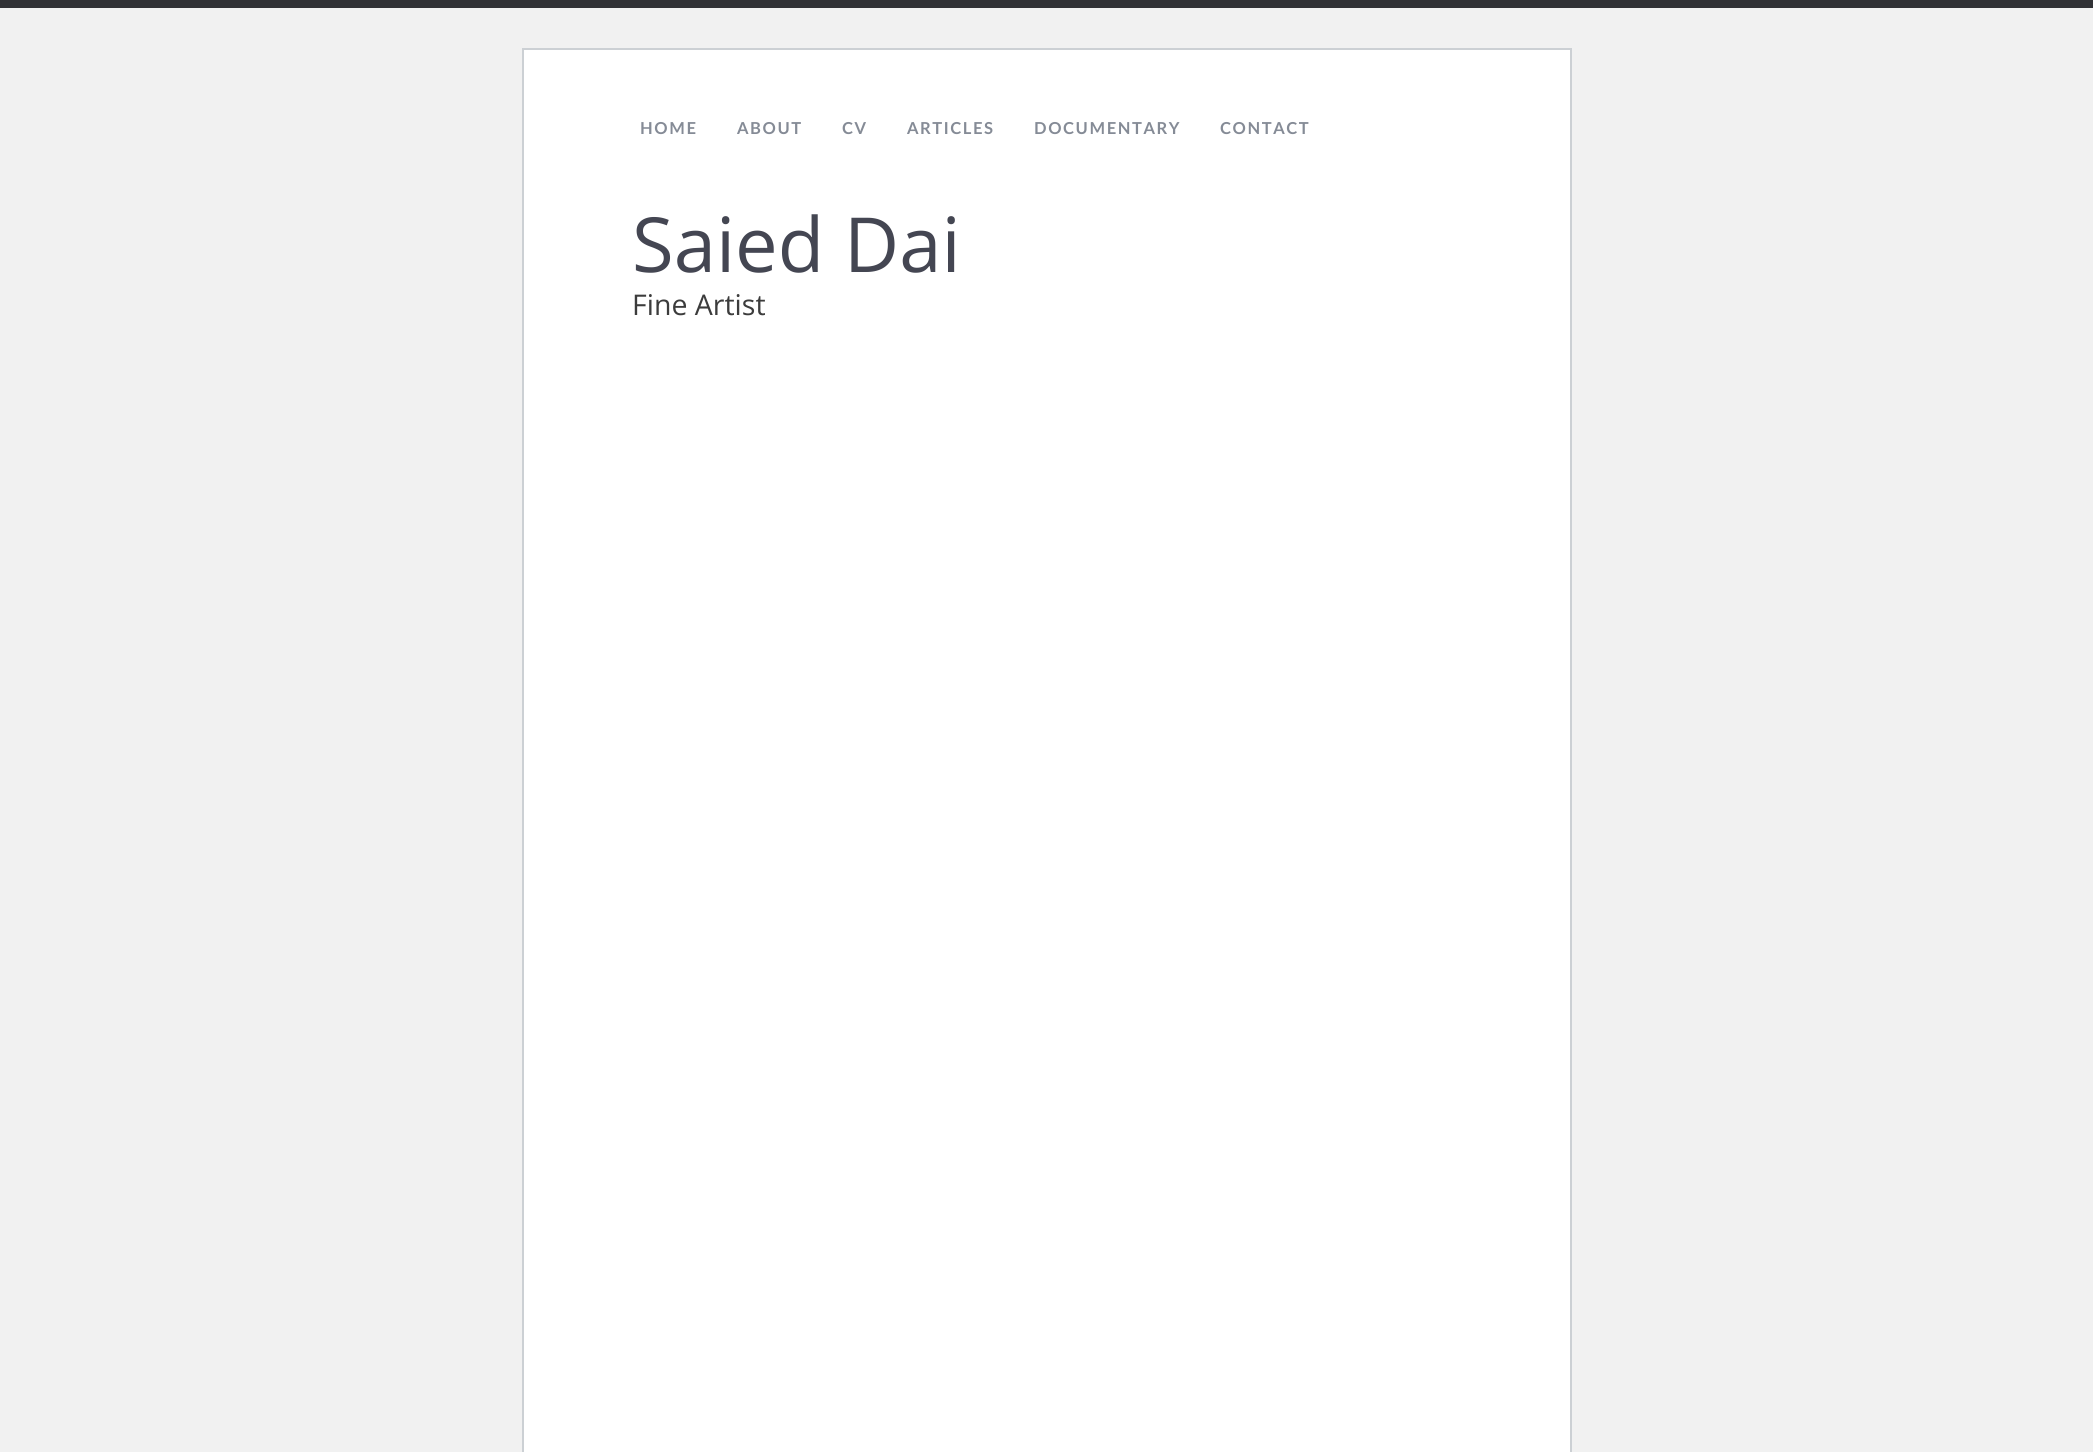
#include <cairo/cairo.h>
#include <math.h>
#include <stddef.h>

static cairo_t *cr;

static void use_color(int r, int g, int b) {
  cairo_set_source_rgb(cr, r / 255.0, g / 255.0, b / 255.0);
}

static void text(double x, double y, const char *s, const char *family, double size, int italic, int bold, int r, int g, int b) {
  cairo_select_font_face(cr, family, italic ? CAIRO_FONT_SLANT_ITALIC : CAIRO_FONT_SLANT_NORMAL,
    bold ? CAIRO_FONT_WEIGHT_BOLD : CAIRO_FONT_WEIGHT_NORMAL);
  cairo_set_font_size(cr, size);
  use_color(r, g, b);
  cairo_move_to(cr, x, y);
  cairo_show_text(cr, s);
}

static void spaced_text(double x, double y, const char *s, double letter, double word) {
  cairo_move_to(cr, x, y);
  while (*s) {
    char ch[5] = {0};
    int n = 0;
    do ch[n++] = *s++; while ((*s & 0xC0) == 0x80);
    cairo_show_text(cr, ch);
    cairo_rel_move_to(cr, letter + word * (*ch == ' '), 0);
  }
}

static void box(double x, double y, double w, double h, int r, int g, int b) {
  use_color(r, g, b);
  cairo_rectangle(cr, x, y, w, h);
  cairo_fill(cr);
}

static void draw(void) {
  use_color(241, 241, 241);
  cairo_paint(cr);
  use_color(255, 255, 255);
  cairo_rectangle(cr, 523, 49, 1048, 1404);
  cairo_fill_preserve(cr);
  use_color(204, 208, 212);
  cairo_stroke(cr);
  box(0, 0, 2093, 8, 49, 50, 54);
  cairo_select_font_face(cr, "Lato", CAIRO_FONT_SLANT_NORMAL, CAIRO_FONT_WEIGHT_BOLD);
  cairo_set_font_size(cr, 16.5);
  use_color(133, 139, 150);
  spaced_text(640, 134, "HOME", 1.6, 0);
  spaced_text(737, 134, "ABOUT", 1.6, 0);
  spaced_text(842, 134, "CV", 1.6, 0);
  spaced_text(907, 134, "ARTICLES", 1.6, 0);
  spaced_text(1034, 134, "DOCUMENTARY", 1.6, 0);
  spaced_text(1220, 134, "CONTACT", 1.6, 0);
  text(632, 272, "Saied Dai", "Open Sans", 76, 0, 0, 68, 70, 82);
  text(632, 315, "Fine Artist", "Open Sans", 28.5, 0, 0, 60, 60, 60);
}

int main(void) {
  cairo_surface_t *surface = cairo_image_surface_create(CAIRO_FORMAT_RGB24, 2093, 1452);
  cr = cairo_create(surface);
  cairo_font_options_t *options = cairo_font_options_create();
  cairo_font_options_set_hint_metrics(options, CAIRO_HINT_METRICS_OFF);
  cairo_font_options_set_hint_style(options, CAIRO_HINT_STYLE_NONE);
  cairo_set_font_options(cr, options);
  cairo_set_miter_limit(cr, 4);
  draw();
  cairo_surface_write_to_png(surface, "out.png");
  cairo_font_options_destroy(options);
  cairo_destroy(cr);
  cairo_surface_destroy(surface);
  return 0;
}
